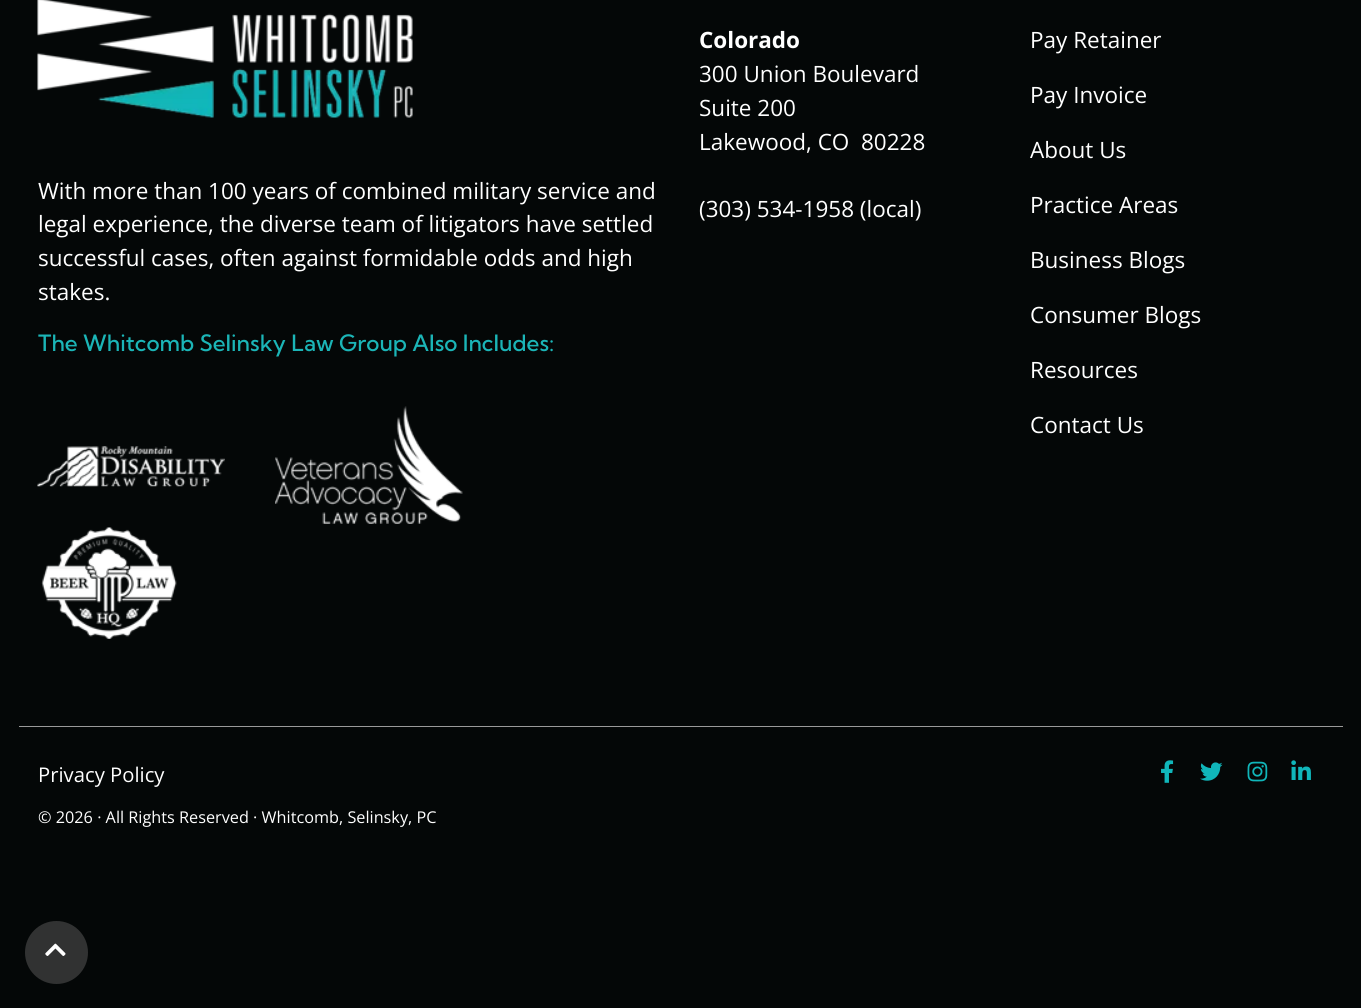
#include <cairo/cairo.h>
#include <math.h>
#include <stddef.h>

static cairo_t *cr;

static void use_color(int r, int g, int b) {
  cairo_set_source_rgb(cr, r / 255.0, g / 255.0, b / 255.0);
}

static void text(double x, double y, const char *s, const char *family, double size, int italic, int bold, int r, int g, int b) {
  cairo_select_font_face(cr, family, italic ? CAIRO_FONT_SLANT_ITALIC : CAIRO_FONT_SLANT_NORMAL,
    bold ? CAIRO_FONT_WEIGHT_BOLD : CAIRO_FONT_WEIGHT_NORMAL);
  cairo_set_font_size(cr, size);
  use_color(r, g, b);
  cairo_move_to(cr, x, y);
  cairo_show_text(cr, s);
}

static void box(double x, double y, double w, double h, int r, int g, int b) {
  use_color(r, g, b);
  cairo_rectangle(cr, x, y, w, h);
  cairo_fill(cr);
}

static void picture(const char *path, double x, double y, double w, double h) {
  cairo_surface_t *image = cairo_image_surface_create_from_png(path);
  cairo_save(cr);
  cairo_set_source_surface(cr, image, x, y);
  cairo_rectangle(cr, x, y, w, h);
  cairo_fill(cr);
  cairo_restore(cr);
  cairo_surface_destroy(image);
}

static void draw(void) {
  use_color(4, 7, 7);
  cairo_paint(cr);
  picture("img_01.png", 37, 0, 376, 118);
  picture("img_02.png", 37, 446, 188, 41);
  picture("img_03.png", 275, 406, 188, 118);
  picture("img_04.png", 41, 527, 136, 112);
  box(19, 726, 1324, 1, 153, 153, 153);
  picture("img_05.png", 1161, 760, 13, 23);
  picture("img_06.png", 1200, 762, 23, 19);
  picture("img_07.png", 1247, 761, 21, 21);
  picture("img_08.png", 1291, 760, 20, 20);
  use_color(49, 50, 50);
  cairo_arc(cr, 56.5, 952.5, 31.5, 0, 2 * M_PI);
  cairo_fill(cr);
  picture("img_09.png", 45, 943, 21, 13);
  text(38, 199, "With more than 100 years of combined military service and", "Open Sans", 22.5, 0, 0, 255, 255, 255);
  text(38, 232, "legal experience, the diverse team of litigators have settled", "Open Sans", 22.5, 0, 0, 255, 255, 255);
  text(38, 266, "successful cases, often against formidable odds and high", "Open Sans", 22.5, 0, 0, 255, 255, 255);
  text(38, 300, "stakes.", "Open Sans", 22.5, 0, 0, 255, 255, 255);
  text(38, 351, "The Whitcomb Selinsky Law Group Also Includes:", "Kumbh Sans Medium", 22.5, 0, 0, 27, 181, 183);
  text(699, 48, "Colorado", "Open Sans", 22.5, 0, 1, 255, 255, 255);
  text(699, 82, "300 Union Boulevard", "Open Sans", 22.5, 0, 0, 255, 255, 255);
  text(699, 116, "Suite 200", "Open Sans", 22.5, 0, 0, 255, 255, 255);
  text(699, 150, "Lakewood, CO  80228", "Open Sans", 22.5, 0, 0, 255, 255, 255);
  text(699, 217, "(303) 534-1958 (local)", "Open Sans", 22.5, 0, 0, 255, 255, 255);
  cairo_save(cr);
  cairo_rectangle(cr, 1030, 24, 131, 34);
  cairo_clip(cr);
  text(1030, 48, "Pay Retainer", "Open Sans", 22.5, 0, 0, 255, 255, 255);
  cairo_restore(cr);
  text(1030, 103, "Pay Invoice", "Open Sans", 22.5, 0, 0, 255, 255, 255);
  text(1030, 158, "About Us", "Open Sans", 22.5, 0, 0, 255, 255, 255);
  text(1030, 213, "Practice Areas", "Open Sans", 22.5, 0, 0, 255, 255, 255);
  text(1030, 268, "Business Blogs", "Open Sans", 22.5, 0, 0, 255, 255, 255);
  text(1030, 323, "Consumer Blogs", "Open Sans", 22.5, 0, 0, 255, 255, 255);
  text(1030, 378, "Resources", "Open Sans", 22.5, 0, 0, 255, 255, 255);
  text(1030, 433, "Contact Us", "Open Sans", 22.5, 0, 0, 255, 255, 255);
  text(38, 782, "Privacy Policy", "Open Sans", 20.25, 0, 0, 255, 255, 255);
  text(38, 823, "© 2026 · All Rights Reserved · Whitcomb, Selinsky, PC", "Open Sans", 16.25, 0, 0, 255, 255, 255);
}

int main(void) {
  cairo_surface_t *surface = cairo_image_surface_create(CAIRO_FORMAT_RGB24, 1361, 1008);
  cr = cairo_create(surface);
  cairo_font_options_t *options = cairo_font_options_create();
  cairo_font_options_set_hint_metrics(options, CAIRO_HINT_METRICS_OFF);
  cairo_font_options_set_hint_style(options, CAIRO_HINT_STYLE_NONE);
  cairo_set_font_options(cr, options);
  cairo_set_miter_limit(cr, 4);
  draw();
  cairo_surface_write_to_png(surface, "out.png");
  cairo_font_options_destroy(options);
  cairo_destroy(cr);
  cairo_surface_destroy(surface);
  return 0;
}
